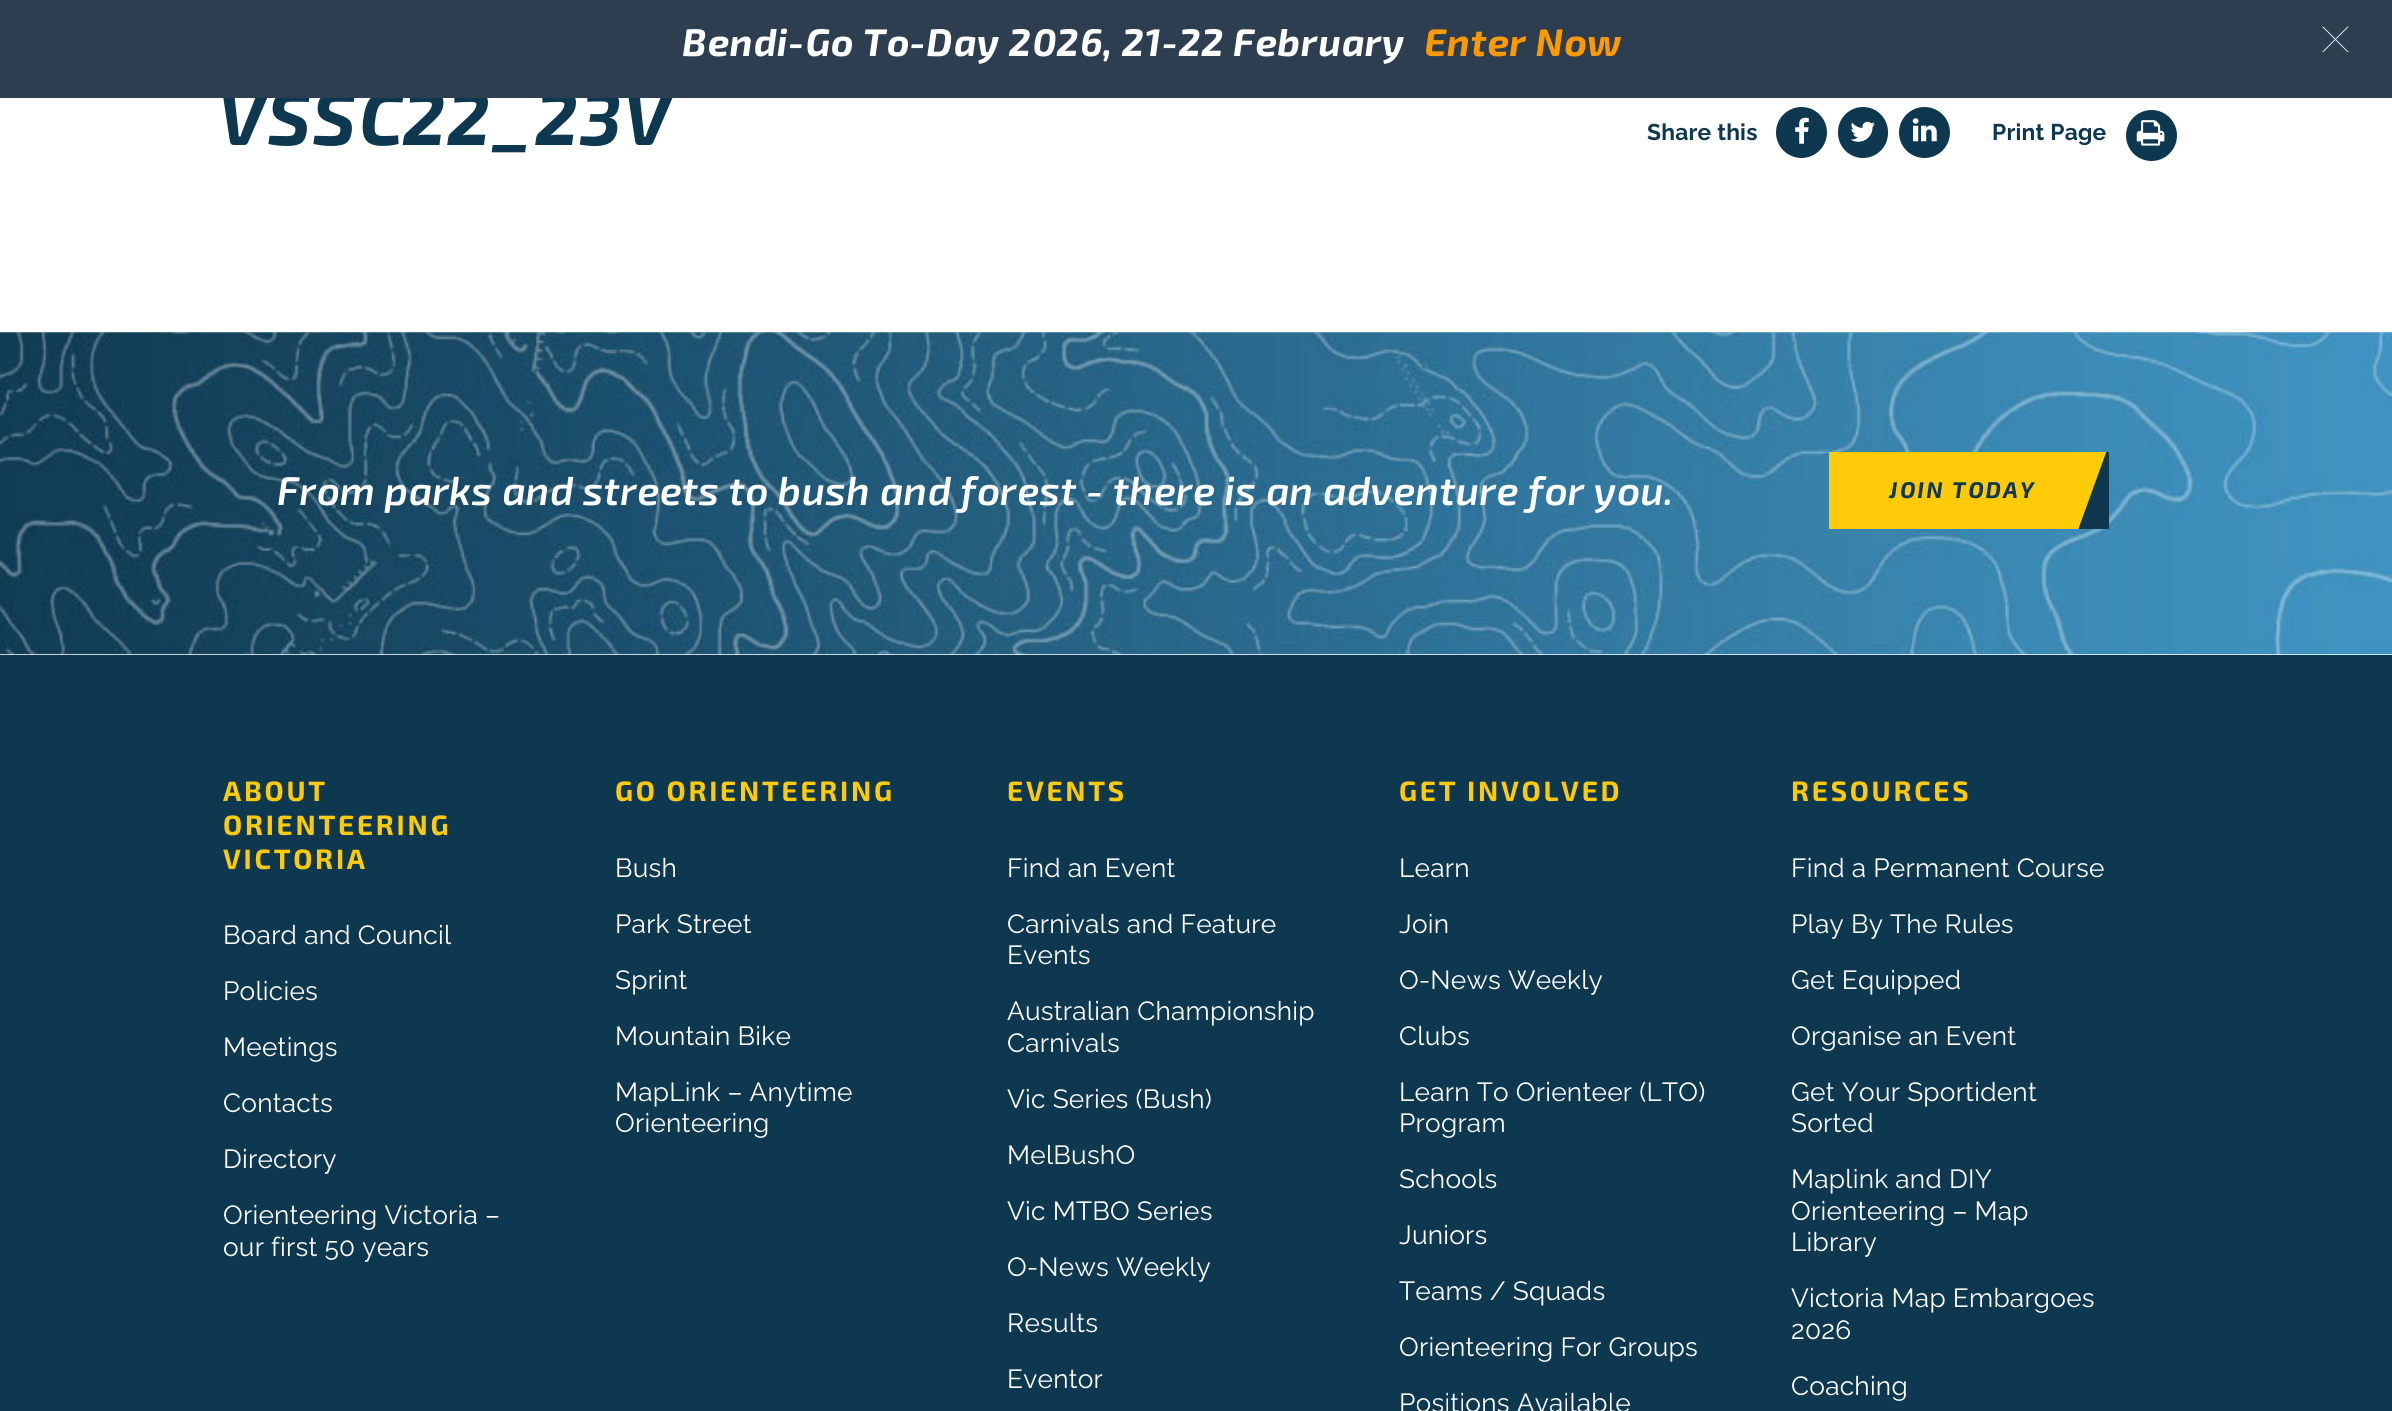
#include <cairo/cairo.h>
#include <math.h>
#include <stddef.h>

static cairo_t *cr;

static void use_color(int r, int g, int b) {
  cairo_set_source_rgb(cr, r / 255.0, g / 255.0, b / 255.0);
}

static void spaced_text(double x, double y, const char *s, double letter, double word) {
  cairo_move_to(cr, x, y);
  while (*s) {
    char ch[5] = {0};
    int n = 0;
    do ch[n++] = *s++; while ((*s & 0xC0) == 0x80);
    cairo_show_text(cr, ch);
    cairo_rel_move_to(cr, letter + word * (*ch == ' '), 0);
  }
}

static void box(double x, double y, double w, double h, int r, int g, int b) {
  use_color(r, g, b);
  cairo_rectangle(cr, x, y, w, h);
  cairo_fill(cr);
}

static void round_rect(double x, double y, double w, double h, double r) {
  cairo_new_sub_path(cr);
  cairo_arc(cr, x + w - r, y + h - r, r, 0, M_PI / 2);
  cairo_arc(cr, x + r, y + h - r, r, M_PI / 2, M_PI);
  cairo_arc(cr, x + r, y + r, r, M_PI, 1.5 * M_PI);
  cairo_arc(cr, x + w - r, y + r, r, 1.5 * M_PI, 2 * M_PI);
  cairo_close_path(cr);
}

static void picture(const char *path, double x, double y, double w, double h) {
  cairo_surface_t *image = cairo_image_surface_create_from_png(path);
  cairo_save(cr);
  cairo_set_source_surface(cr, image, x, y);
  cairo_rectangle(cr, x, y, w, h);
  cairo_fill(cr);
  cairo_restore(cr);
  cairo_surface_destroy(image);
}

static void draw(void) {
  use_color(255, 255, 255);
  cairo_paint(cr);
  use_color(14, 56, 79);
  cairo_arc(cr, 1801.5, 132.5, 25.5, 0, 2 * M_PI);
  cairo_fill(cr);
  picture("img_02.png", 1795, 117, 14, 27);
  round_rect(1838, 107, 50, 51, 25);
  cairo_fill(cr);
  picture("img_03.png", 1850, 121, 25, 21);
  cairo_arc(cr, 1924.5, 132.5, 25.5, 0, 2 * M_PI);
  cairo_fill(cr);
  picture("img_04.png", 1912, 118, 25, 24);
  cairo_arc(cr, 2151.5, 135.5, 25.5, 0, 2 * M_PI);
  cairo_fill(cr);
  picture("img_05.png", 2136, 120, 29, 26);
  picture("img_06.png", 0, 332, 2392, 323);
  box(1829, 452, 278, 77, 255, 203, 8);
  cairo_save(cr);
  cairo_rectangle(cr, 1829, 452, 280, 77);
  cairo_clip(cr);
  use_color(14, 56, 79);
  cairo_new_path(cr);
  cairo_move_to(cr, 2107, 450);
  cairo_line_to(cr, 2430, 450);
  cairo_line_to(cr, 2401, 530);
  cairo_line_to(cr, 2078, 530);
  cairo_close_path(cr);
  cairo_fill(cr);
  cairo_restore(cr);
  box(0, 655, 2392, 756, 14, 56, 79);
  cairo_select_font_face(cr, "Exo 2", CAIRO_FONT_SLANT_ITALIC, CAIRO_FONT_WEIGHT_BOLD);
  cairo_set_font_size(cr, 75.25);
  spaced_text(218, 145, "VSSC22_23V", 1.5, 0);
  box(0, 0, 2392, 98, 45, 62, 80);
  picture("img_01.png", 2322, 26, 27, 27);
  cairo_set_font_size(cr, 38.5);
  use_color(255, 153, 0);
  spaced_text(1424, 56, "Enter Now", 0.75, 0);
  use_color(255, 255, 255);
  spaced_text(682, 56, "Bendi-Go To-Day 2026, 21-22 February", 0.75, 0);
  cairo_select_font_face(cr, "Raleway", CAIRO_FONT_SLANT_NORMAL, CAIRO_FONT_WEIGHT_BOLD);
  cairo_set_font_size(cr, 22.75);
  use_color(14, 56, 79);
  spaced_text(1647, 140, "Share this", 0.25, 0);
  spaced_text(1992, 140, "Print Page", 0.25, 0);
  cairo_select_font_face(cr, "Exo 2 SemiBold", CAIRO_FONT_SLANT_ITALIC, CAIRO_FONT_WEIGHT_NORMAL);
  cairo_set_font_size(cr, 40.25);
  use_color(255, 255, 255);
  spaced_text(277, 505, "From parks and streets to bush and forest - there is an adventure for you.", 0.4, 0);
  cairo_select_font_face(cr, "Exo 2", CAIRO_FONT_SLANT_ITALIC, CAIRO_FONT_WEIGHT_BOLD);
  cairo_set_font_size(cr, 22.75);
  use_color(14, 56, 79);
  spaced_text(1889, 498, "JOIN TODAY", 2.25, 0);
  cairo_select_font_face(cr, "Exo 2", CAIRO_FONT_SLANT_NORMAL, CAIRO_FONT_WEIGHT_BOLD);
  cairo_set_font_size(cr, 28);
  use_color(255, 203, 8);
  spaced_text(223, 801, "ABOUT", 2.75, 0);
  spaced_text(223, 835, "ORIENTEERING", 2.75, 0);
  spaced_text(223, 869, "VICTORIA", 2.75, 0);
  cairo_select_font_face(cr, "Raleway", CAIRO_FONT_SLANT_NORMAL, CAIRO_FONT_WEIGHT_NORMAL);
  cairo_set_font_size(cr, 26.25);
  use_color(255, 255, 255);
  spaced_text(223, 944, "Board and Council", 0.25, 0);
  spaced_text(223, 1000, "Policies", 0.25, 0);
  spaced_text(223, 1056, "Meetings", 0.25, 0);
  spaced_text(223, 1112, "Contacts", 0.25, 0);
  spaced_text(223, 1168, "Directory", 0.25, 0);
  spaced_text(223, 1224, "Orienteering Victoria –", 0.25, 0);
  spaced_text(223, 1256, "our first 50 years", 0.25, 0);
  cairo_select_font_face(cr, "Exo 2", CAIRO_FONT_SLANT_NORMAL, CAIRO_FONT_WEIGHT_BOLD);
  cairo_set_font_size(cr, 28);
  use_color(255, 203, 8);
  spaced_text(615, 801, "GO ORIENTEERING", 2.75, 0);
  cairo_select_font_face(cr, "Raleway", CAIRO_FONT_SLANT_NORMAL, CAIRO_FONT_WEIGHT_NORMAL);
  cairo_set_font_size(cr, 26.25);
  use_color(255, 255, 255);
  spaced_text(615, 877, "Bush", 0.25, 0);
  spaced_text(615, 933, "Park Street", 0.25, 0);
  spaced_text(615, 989, "Sprint", 0.25, 0);
  spaced_text(615, 1045, "Mountain Bike", 0.25, 0);
  spaced_text(615, 1101, "MapLink – Anytime", 0.25, 0);
  spaced_text(615, 1132, "Orienteering", 0.25, 0);
  cairo_select_font_face(cr, "Exo 2", CAIRO_FONT_SLANT_NORMAL, CAIRO_FONT_WEIGHT_BOLD);
  cairo_set_font_size(cr, 28);
  use_color(255, 203, 8);
  spaced_text(1007, 801, "EVENTS", 2.75, 0);
  cairo_select_font_face(cr, "Raleway", CAIRO_FONT_SLANT_NORMAL, CAIRO_FONT_WEIGHT_NORMAL);
  cairo_set_font_size(cr, 26.25);
  use_color(255, 255, 255);
  spaced_text(1007, 877, "Find an Event", 0.25, 0);
  spaced_text(1007, 933, "Carnivals and Feature", 0.25, 0);
  spaced_text(1007, 964, "Events", 0.25, 0);
  spaced_text(1007, 1020, "Australian Championship", 0.25, 0);
  spaced_text(1007, 1052, "Carnivals", 0.25, 0);
  spaced_text(1007, 1108, "Vic Series (Bush)", 0.25, 0);
  spaced_text(1007, 1164, "MelBushO", 0.25, 0);
  spaced_text(1007, 1220, "Vic MTBO Series", 0.25, 0);
  spaced_text(1007, 1276, "O-News Weekly", 0.25, 0);
  spaced_text(1007, 1332, "Results", 0.25, 0);
  spaced_text(1007, 1388, "Eventor", 0.25, 0);
  cairo_select_font_face(cr, "Exo 2", CAIRO_FONT_SLANT_NORMAL, CAIRO_FONT_WEIGHT_BOLD);
  cairo_set_font_size(cr, 28);
  use_color(255, 203, 8);
  spaced_text(1399, 801, "GET INVOLVED", 2.75, 0);
  cairo_select_font_face(cr, "Raleway", CAIRO_FONT_SLANT_NORMAL, CAIRO_FONT_WEIGHT_NORMAL);
  cairo_set_font_size(cr, 26.25);
  use_color(255, 255, 255);
  spaced_text(1399, 877, "Learn", 0.25, 0);
  spaced_text(1399, 933, "Join", 0.25, 0);
  spaced_text(1399, 989, "O-News Weekly", 0.25, 0);
  spaced_text(1399, 1045, "Clubs", 0.25, 0);
  spaced_text(1399, 1101, "Learn To Orienteer (LTO)", 0.25, 0);
  spaced_text(1399, 1132, "Program", 0.25, 0);
  spaced_text(1399, 1188, "Schools", 0.25, 0);
  spaced_text(1399, 1244, "Juniors", 0.25, 0);
  spaced_text(1399, 1300, "Teams / Squads", 0.25, 0);
  spaced_text(1399, 1356, "Orienteering For Groups", 0.25, 0);
  spaced_text(1399, 1412, "Positions Available", 0.25, 0);
  cairo_select_font_face(cr, "Exo 2", CAIRO_FONT_SLANT_NORMAL, CAIRO_FONT_WEIGHT_BOLD);
  cairo_set_font_size(cr, 28);
  use_color(255, 203, 8);
  spaced_text(1791, 801, "RESOURCES", 2.75, 0);
  cairo_select_font_face(cr, "Raleway", CAIRO_FONT_SLANT_NORMAL, CAIRO_FONT_WEIGHT_NORMAL);
  cairo_set_font_size(cr, 26.25);
  use_color(255, 255, 255);
  spaced_text(1791, 877, "Find a Permanent Course", 0.25, 0);
  spaced_text(1791, 933, "Play By The Rules", 0.25, 0);
  spaced_text(1791, 989, "Get Equipped", 0.25, 0);
  spaced_text(1791, 1045, "Organise an Event", 0.25, 0);
  spaced_text(1791, 1101, "Get Your Sportident", 0.25, 0);
  spaced_text(1791, 1132, "Sorted", 0.25, 0);
  spaced_text(1791, 1188, "Maplink and DIY", 0.25, 0);
  spaced_text(1791, 1220, "Orienteering – Map", 0.25, 0);
  spaced_text(1791, 1251, "Library", 0.25, 0);
  spaced_text(1791, 1307, "Victoria Map Embargoes", 0.25, 0);
  spaced_text(1791, 1339, "2026", 0.25, 0);
  spaced_text(1791, 1395, "Coaching", 0.25, 0);
}

int main(void) {
  cairo_surface_t *surface = cairo_image_surface_create(CAIRO_FORMAT_RGB24, 2392, 1411);
  cr = cairo_create(surface);
  cairo_font_options_t *options = cairo_font_options_create();
  cairo_font_options_set_hint_metrics(options, CAIRO_HINT_METRICS_OFF);
  cairo_font_options_set_hint_style(options, CAIRO_HINT_STYLE_NONE);
  cairo_set_font_options(cr, options);
  cairo_set_miter_limit(cr, 4);
  draw();
  cairo_surface_write_to_png(surface, "out.png");
  cairo_font_options_destroy(options);
  cairo_destroy(cr);
  cairo_surface_destroy(surface);
  return 0;
}
